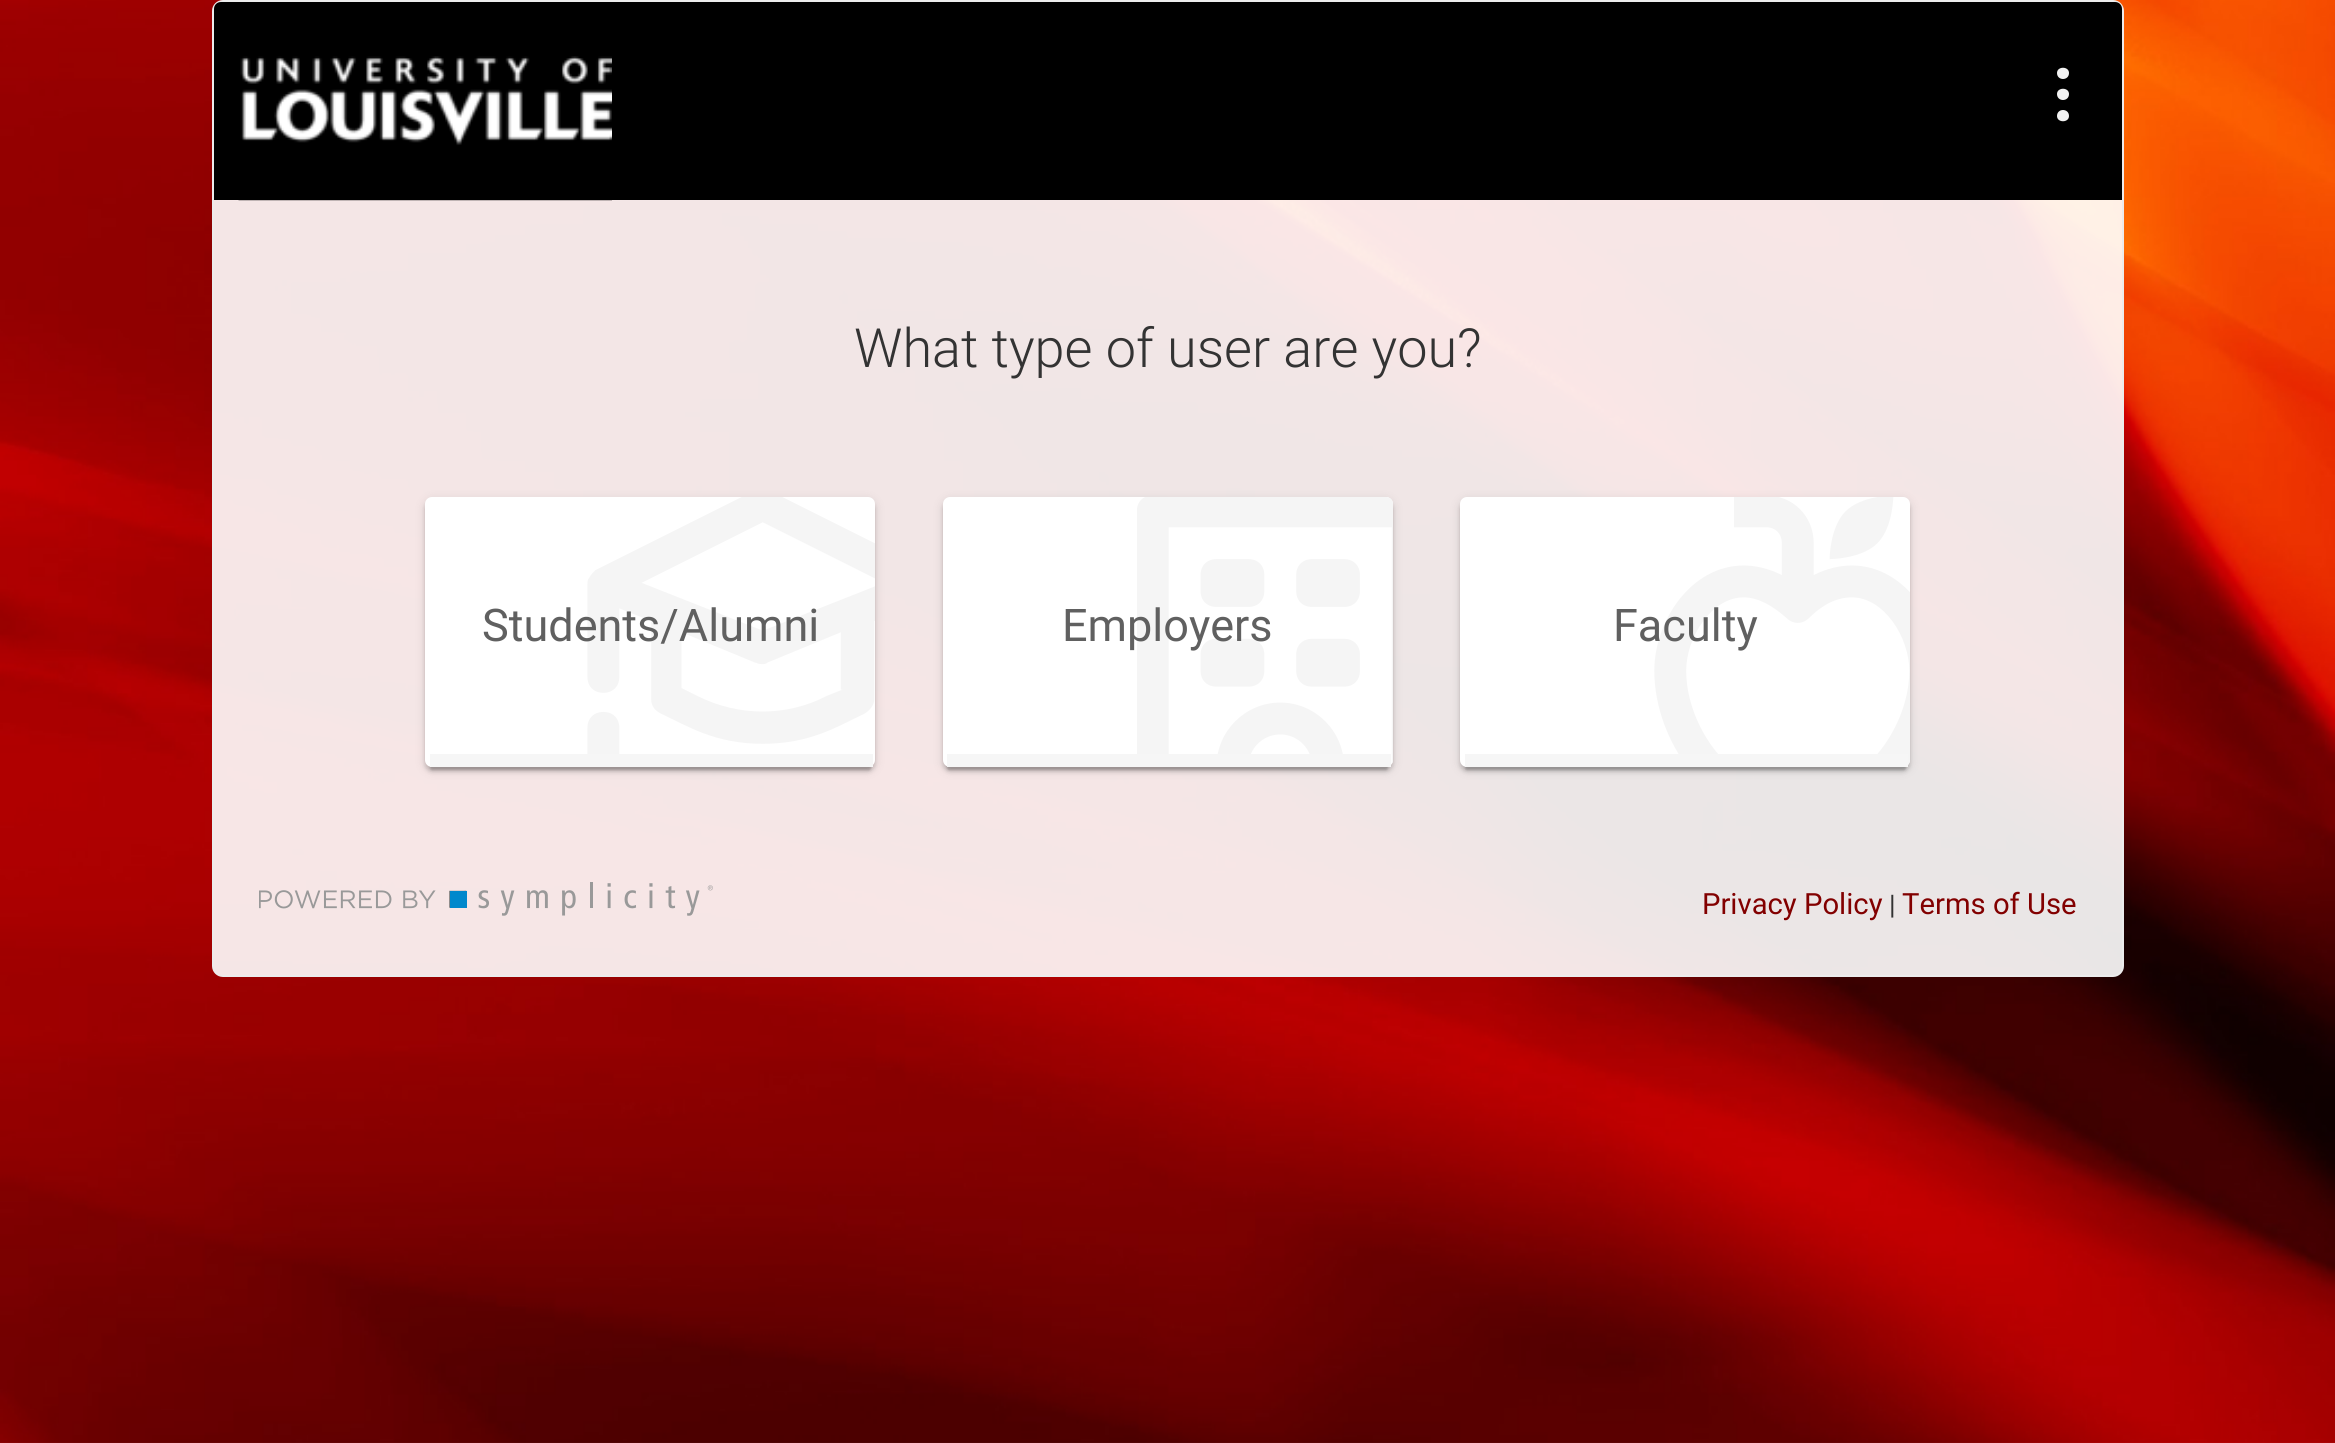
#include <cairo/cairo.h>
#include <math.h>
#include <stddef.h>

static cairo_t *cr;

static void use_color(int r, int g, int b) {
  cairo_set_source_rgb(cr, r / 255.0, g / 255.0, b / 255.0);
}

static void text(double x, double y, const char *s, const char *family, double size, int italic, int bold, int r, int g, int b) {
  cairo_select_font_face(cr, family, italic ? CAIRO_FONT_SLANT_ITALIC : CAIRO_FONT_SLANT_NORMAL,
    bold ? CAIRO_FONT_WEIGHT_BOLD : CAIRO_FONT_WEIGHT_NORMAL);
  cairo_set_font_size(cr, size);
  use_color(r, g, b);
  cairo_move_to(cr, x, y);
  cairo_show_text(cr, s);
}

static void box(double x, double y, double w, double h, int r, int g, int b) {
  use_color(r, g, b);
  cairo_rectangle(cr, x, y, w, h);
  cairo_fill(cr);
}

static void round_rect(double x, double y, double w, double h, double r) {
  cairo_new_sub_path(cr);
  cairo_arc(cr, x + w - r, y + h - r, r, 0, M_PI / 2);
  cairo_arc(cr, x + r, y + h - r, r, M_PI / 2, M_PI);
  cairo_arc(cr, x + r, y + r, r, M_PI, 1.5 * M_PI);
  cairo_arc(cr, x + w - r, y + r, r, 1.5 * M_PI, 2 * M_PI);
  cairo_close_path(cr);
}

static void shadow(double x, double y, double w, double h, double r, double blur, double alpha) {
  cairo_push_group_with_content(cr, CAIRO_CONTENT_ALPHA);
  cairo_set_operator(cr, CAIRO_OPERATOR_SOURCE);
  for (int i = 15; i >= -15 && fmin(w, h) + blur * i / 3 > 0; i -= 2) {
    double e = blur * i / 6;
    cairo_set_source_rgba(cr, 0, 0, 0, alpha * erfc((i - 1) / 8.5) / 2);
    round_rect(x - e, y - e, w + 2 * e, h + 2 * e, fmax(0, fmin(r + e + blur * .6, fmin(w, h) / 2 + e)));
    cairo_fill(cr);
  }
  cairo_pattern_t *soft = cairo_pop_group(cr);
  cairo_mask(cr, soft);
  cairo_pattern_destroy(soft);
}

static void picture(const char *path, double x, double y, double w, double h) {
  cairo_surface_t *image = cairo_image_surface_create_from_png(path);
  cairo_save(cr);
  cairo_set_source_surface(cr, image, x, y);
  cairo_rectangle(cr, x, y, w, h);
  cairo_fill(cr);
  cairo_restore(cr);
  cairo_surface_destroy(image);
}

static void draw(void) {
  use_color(255, 255, 255);
  cairo_paint(cr);
  picture("img_01.png", 0, 0, 2335, 1443);
  cairo_set_source_rgba(cr, 1, 1, 1, 0.9);
  round_rect(213, 1, 1910, 975, 10);
  cairo_fill_preserve(cr);
  use_color(236, 236, 236);
  cairo_stroke(cr);
  use_color(0, 0, 0);
  cairo_new_path(cr);
  cairo_move_to(cr, 221, 2);
  cairo_line_to(cr, 2115, 2);
  cairo_curve_to(cr, 2119, 2, 2122, 5, 2122, 9);
  cairo_line_to(cr, 2122, 200);
  cairo_line_to(cr, 214, 200);
  cairo_line_to(cr, 214, 9);
  cairo_curve_to(cr, 214, 5, 217, 2, 221, 2);
  cairo_close_path(cr);
  cairo_fill(cr);
  picture("img_02.png", 238, 56, 374, 145);
  use_color(242, 242, 242);
  cairo_new_path(cr);
  cairo_move_to(cr, 2069, 73);
  cairo_curve_to(cr, 2069, 81, 2057, 81, 2057, 73);
  cairo_curve_to(cr, 2057, 66, 2069, 66, 2069, 73);
  cairo_close_path(cr);
  cairo_move_to(cr, 2069, 94);
  cairo_curve_to(cr, 2069, 102, 2057, 102, 2057, 94);
  cairo_curve_to(cr, 2057, 87, 2069, 87, 2069, 94);
  cairo_close_path(cr);
  cairo_move_to(cr, 2069, 116);
  cairo_curve_to(cr, 2069, 123, 2057, 123, 2057, 116);
  cairo_curve_to(cr, 2057, 108, 2069, 108, 2069, 116);
  cairo_close_path(cr);
  cairo_fill(cr);
  use_color(0, 0, 0);
  shadow(425, 500, 450, 270, 7, 5.5, 0.12);
  shadow(430, 509, 441, 261, 2, 1, 0.2);
  shadow(425, 502, 450, 270, 7, 2, 0.14);
  use_color(255, 255, 255);
  round_rect(425, 497, 450, 270, 7);
  cairo_fill(cr);
  picture("img_03.png", 587, 497, 288, 257);
  box(430, 754, 443, 13, 246, 246, 246);
  use_color(0, 0, 0);
  shadow(943, 500, 450, 270, 7, 5.5, 0.12);
  shadow(947, 509, 441, 261, 2, 1, 0.2);
  shadow(943, 502, 450, 270, 7, 2, 0.14);
  use_color(255, 255, 255);
  round_rect(943, 497, 450, 270, 7);
  cairo_fill(cr);
  picture("img_04.png", 1137, 497, 256, 268);
  box(947, 754, 444, 13, 246, 246, 246);
  use_color(0, 0, 0);
  shadow(1460, 500, 450, 270, 7, 5.5, 0.12);
  shadow(1465, 509, 441, 261, 2, 1, 0.2);
  shadow(1460, 502, 450, 270, 7, 2, 0.14);
  use_color(255, 255, 255);
  round_rect(1460, 497, 450, 270, 7);
  cairo_fill(cr);
  picture("img_05.png", 1654, 497, 256, 268);
  box(1465, 754, 443, 13, 246, 246, 246);
  picture("img_06.png", 259, 882, 454, 34);
  text(854, 367, "What type of user are you?", "Roboto Light", 54, 0, 0, 51, 51, 51);
  text(482, 641, "Students/Alumni", "Roboto", 45, 0, 0, 96, 96, 96);
  text(1062, 641, "Employers", "Roboto", 45, 0, 0, 96, 96, 96);
  text(1613, 641, "Faculty", "Roboto", 45, 0, 0, 96, 96, 96);
  text(1702, 914, "Privacy Policy", "Roboto", 29.25, 0, 0, 130, 0, 0);
  text(1889, 914, "|", "Roboto", 27, 0, 0, 51, 51, 51);
  text(1902, 914, "Terms of Use", "Roboto", 29.25, 0, 0, 130, 0, 0);
}

int main(void) {
  cairo_surface_t *surface = cairo_image_surface_create(CAIRO_FORMAT_RGB24, 2335, 1443);
  cr = cairo_create(surface);
  cairo_font_options_t *options = cairo_font_options_create();
  cairo_font_options_set_hint_metrics(options, CAIRO_HINT_METRICS_OFF);
  cairo_font_options_set_hint_style(options, CAIRO_HINT_STYLE_NONE);
  cairo_set_font_options(cr, options);
  cairo_set_miter_limit(cr, 4);
  draw();
  cairo_surface_write_to_png(surface, "out.png");
  cairo_font_options_destroy(options);
  cairo_destroy(cr);
  cairo_surface_destroy(surface);
  return 0;
}
